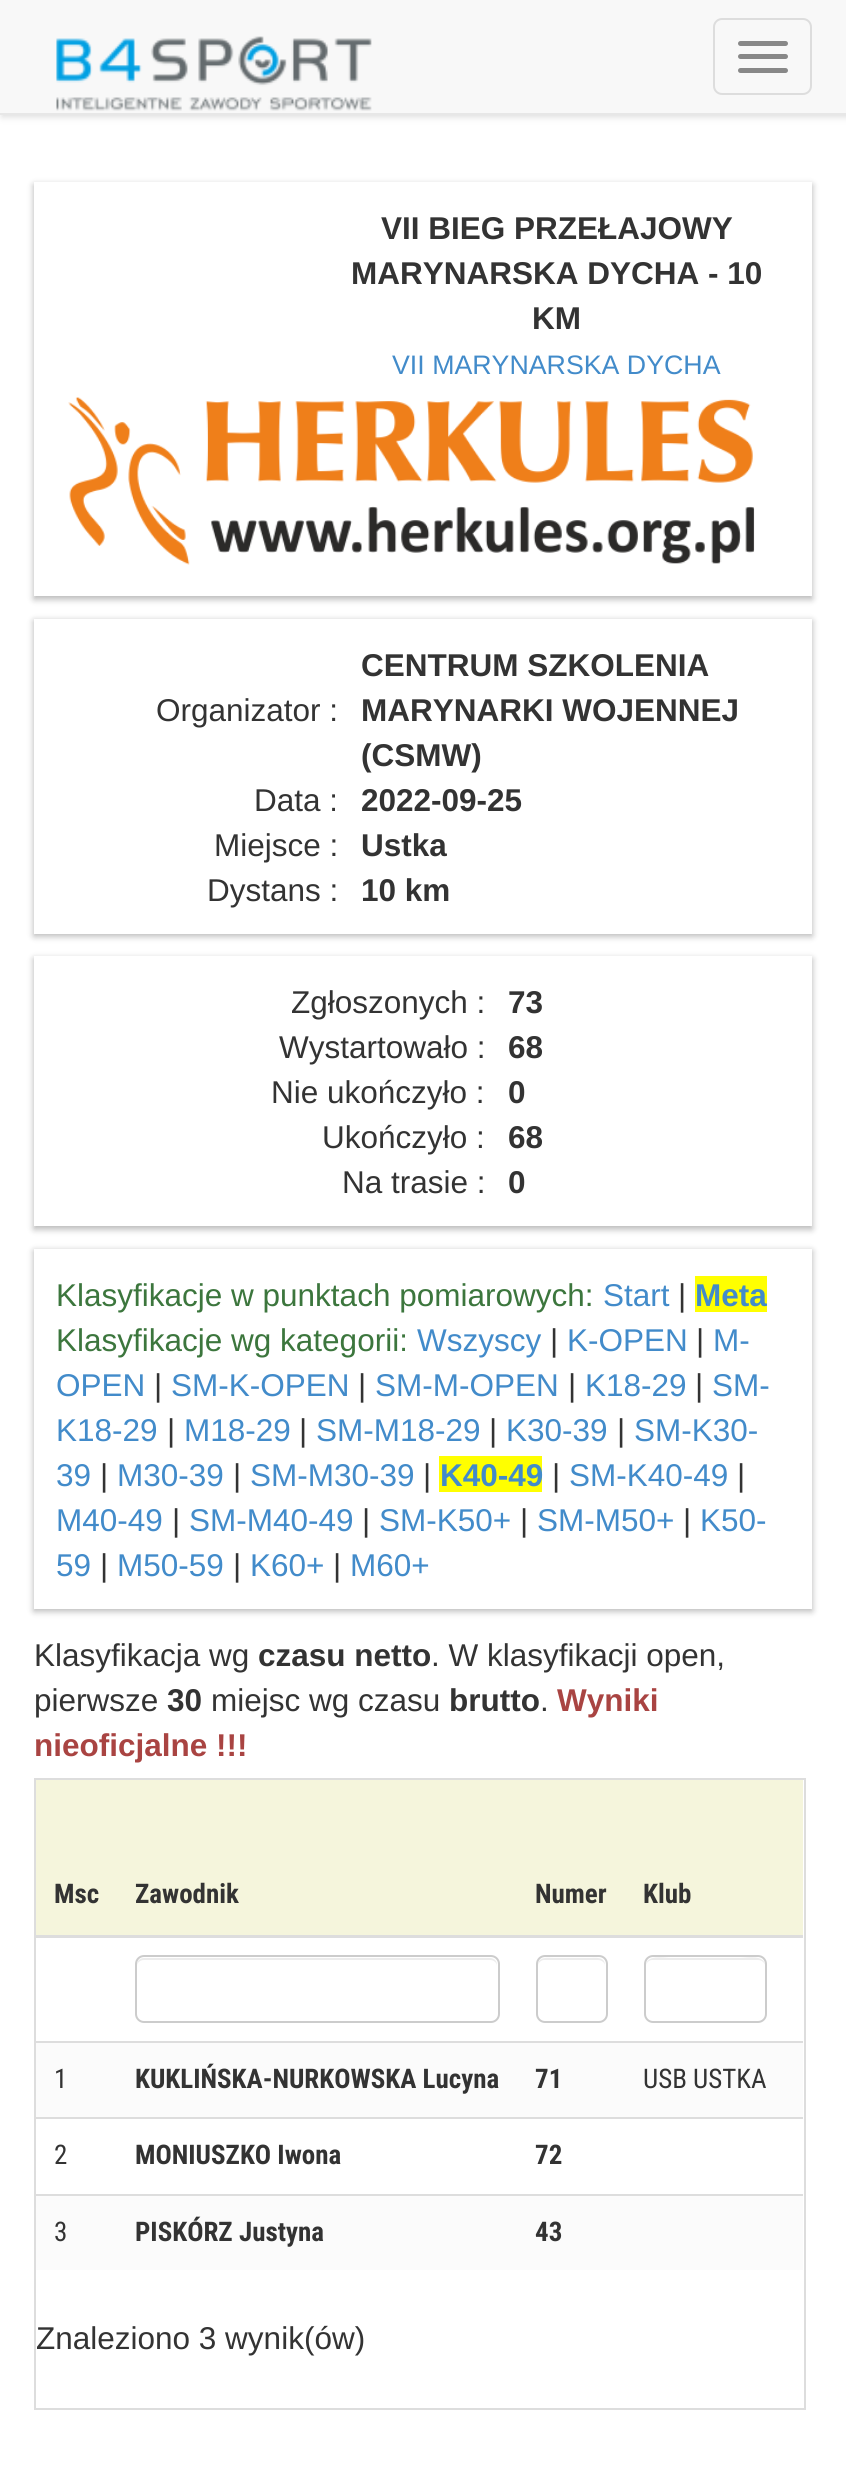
#include <cairo/cairo.h>
#include <math.h>
#include <stddef.h>

static cairo_t *cr;

static void use_color(int r, int g, int b) {
  cairo_set_source_rgb(cr, r / 255.0, g / 255.0, b / 255.0);
}

static void text(double x, double y, const char *s, const char *family, double size, int italic, int bold, int r, int g, int b) {
  cairo_select_font_face(cr, family, italic ? CAIRO_FONT_SLANT_ITALIC : CAIRO_FONT_SLANT_NORMAL,
    bold ? CAIRO_FONT_WEIGHT_BOLD : CAIRO_FONT_WEIGHT_NORMAL);
  cairo_set_font_size(cr, size);
  use_color(r, g, b);
  cairo_move_to(cr, x, y);
  cairo_show_text(cr, s);
}

static void box(double x, double y, double w, double h, int r, int g, int b) {
  use_color(r, g, b);
  cairo_rectangle(cr, x, y, w, h);
  cairo_fill(cr);
}

static void round_rect(double x, double y, double w, double h, double r) {
  cairo_new_sub_path(cr);
  cairo_arc(cr, x + w - r, y + h - r, r, 0, M_PI / 2);
  cairo_arc(cr, x + r, y + h - r, r, M_PI / 2, M_PI);
  cairo_arc(cr, x + r, y + r, r, M_PI, 1.5 * M_PI);
  cairo_arc(cr, x + w - r, y + r, r, 1.5 * M_PI, 2 * M_PI);
  cairo_close_path(cr);
}

static void shadow(double x, double y, double w, double h, double r, double blur, double alpha) {
  cairo_push_group_with_content(cr, CAIRO_CONTENT_ALPHA);
  cairo_set_operator(cr, CAIRO_OPERATOR_SOURCE);
  for (int i = 15; i >= -15 && fmin(w, h) + blur * i / 3 > 0; i -= 2) {
    double e = blur * i / 6;
    cairo_set_source_rgba(cr, 0, 0, 0, alpha * erfc((i - 1) / 8.5) / 2);
    round_rect(x - e, y - e, w + 2 * e, h + 2 * e, fmax(0, fmin(r + e + blur * .6, fmin(w, h) / 2 + e)));
    cairo_fill(cr);
  }
  cairo_pattern_t *soft = cairo_pop_group(cr);
  cairo_mask(cr, soft);
  cairo_pattern_destroy(soft);
}

static void picture(const char *path, double x, double y, double w, double h) {
  cairo_surface_t *image = cairo_image_surface_create_from_png(path);
  cairo_save(cr);
  cairo_set_source_surface(cr, image, x, y);
  cairo_rectangle(cr, x, y, w, h);
  cairo_fill(cr);
  cairo_restore(cr);
  cairo_surface_destroy(image);
}

static void draw(void) {
  use_color(255, 255, 255);
  cairo_paint(cr);
  use_color(221, 221, 221);
  shadow(2, 2, 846, 115, 0, 3.5, 1);
  box(0, 0, 846, 113, 248, 248, 248);
  box(0, 113, 846, 2, 231, 231, 231);
  picture("img_01.png", 56, 36, 316, 75);
  round_rect(714, 19, 97, 75, 8);
  use_color(221, 221, 221);
  cairo_stroke(cr);
  use_color(136, 136, 136);
  round_rect(738, 41, 50, 5, 2.5);
  cairo_fill(cr);
  round_rect(738, 54, 50, 5, 2.5);
  cairo_fill(cr);
  round_rect(738, 68, 50, 5, 2.5);
  cairo_fill(cr);
  cairo_save(cr);
  cairo_set_fill_rule(cr, CAIRO_FILL_RULE_EVEN_ODD);
  cairo_new_path(cr);
  cairo_move_to(cr, 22, 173);
  cairo_line_to(cr, 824, 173);
  cairo_line_to(cr, 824, 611);
  cairo_line_to(cr, 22, 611);
  cairo_close_path(cr);
  cairo_move_to(cr, 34, 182);
  cairo_line_to(cr, 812, 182);
  cairo_line_to(cr, 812, 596);
  cairo_line_to(cr, 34, 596);
  cairo_close_path(cr);
  cairo_clip(cr);
  use_color(0, 0, 0);
  shadow(34, 185, 778, 414, 0, 3.5, 0.3);
  cairo_restore(cr);
  cairo_set_source_rgba(cr, 1, 1, 1, 0.6);
  cairo_rectangle(cr, 41, 182, 764, 1);
  cairo_fill(cr);
  picture("img_02.png", 68, 397, 687, 168);
  cairo_save(cr);
  cairo_set_fill_rule(cr, CAIRO_FILL_RULE_EVEN_ODD);
  cairo_new_path(cr);
  cairo_move_to(cr, 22, 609);
  cairo_line_to(cr, 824, 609);
  cairo_line_to(cr, 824, 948);
  cairo_line_to(cr, 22, 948);
  cairo_close_path(cr);
  cairo_move_to(cr, 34, 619);
  cairo_line_to(cr, 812, 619);
  cairo_line_to(cr, 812, 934);
  cairo_line_to(cr, 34, 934);
  cairo_close_path(cr);
  cairo_clip(cr);
  use_color(0, 0, 0);
  shadow(34, 621, 778, 315, 0, 3.5, 0.3);
  cairo_restore(cr);
  cairo_rectangle(cr, 34, 933, 778, 1);
  cairo_fill(cr);
  cairo_save(cr);
  cairo_set_fill_rule(cr, CAIRO_FILL_RULE_EVEN_ODD);
  cairo_new_path(cr);
  cairo_move_to(cr, 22, 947);
  cairo_line_to(cr, 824, 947);
  cairo_line_to(cr, 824, 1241);
  cairo_line_to(cr, 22, 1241);
  cairo_close_path(cr);
  cairo_move_to(cr, 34, 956);
  cairo_line_to(cr, 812, 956);
  cairo_line_to(cr, 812, 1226);
  cairo_line_to(cr, 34, 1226);
  cairo_close_path(cr);
  cairo_clip(cr);
  use_color(0, 0, 0);
  shadow(34, 959, 778, 270, 0, 3.5, 0.3);
  cairo_restore(cr);
  cairo_rectangle(cr, 41, 956, 764, 1);
  cairo_fill(cr);
  cairo_save(cr);
  cairo_set_fill_rule(cr, CAIRO_FILL_RULE_EVEN_ODD);
  cairo_new_path(cr);
  cairo_move_to(cr, 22, 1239);
  cairo_line_to(cr, 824, 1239);
  cairo_line_to(cr, 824, 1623);
  cairo_line_to(cr, 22, 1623);
  cairo_close_path(cr);
  cairo_move_to(cr, 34, 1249);
  cairo_line_to(cr, 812, 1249);
  cairo_line_to(cr, 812, 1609);
  cairo_line_to(cr, 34, 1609);
  cairo_close_path(cr);
  cairo_clip(cr);
  use_color(0, 0, 0);
  shadow(34, 1251, 778, 360, 0, 3.5, 0.3);
  cairo_restore(cr);
  cairo_rectangle(cr, 34, 1608, 778, 1);
  cairo_fill(cr);
  box(695, 1276, 72, 36, 255, 255, 0);
  box(439, 1456, 103, 36, 255, 255, 0);
  cairo_rectangle(cr, 35, 1779, 770, 630);
  use_color(221, 221, 221);
  cairo_stroke(cr);
  box(36, 1780, 767, 155, 245, 245, 220);
  box(36, 1935, 767, 3, 221, 221, 221);
  use_color(236, 236, 236);
  cairo_new_path(cr);
  cairo_move_to(cr, 144, 1960);
  cairo_line_to(cr, 490, 1960);
  cairo_curve_to(cr, 494, 1960, 497, 1963, 497, 1966);
  cairo_line_to(cr, 497, 1965);
  cairo_curve_to(cr, 497, 1961, 494, 1958, 490, 1958);
  cairo_line_to(cr, 144, 1958);
  cairo_curve_to(cr, 140, 1958, 137, 1961, 137, 1965);
  cairo_line_to(cr, 137, 1966);
  cairo_curve_to(cr, 137, 1963, 140, 1960, 144, 1960);
  cairo_close_path(cr);
  cairo_fill(cr);
  round_rect(136, 1956, 363, 66, 8);
  use_color(204, 204, 204);
  cairo_stroke(cr);
  use_color(236, 236, 236);
  cairo_new_path(cr);
  cairo_move_to(cr, 544, 1960);
  cairo_line_to(cr, 598, 1960);
  cairo_curve_to(cr, 602, 1960, 605, 1963, 605, 1966);
  cairo_curve_to(cr, 605, 1956, 596, 1958, 589, 1958);
  cairo_line_to(cr, 554, 1958);
  cairo_curve_to(cr, 547, 1958, 538, 1956, 538, 1966);
  cairo_curve_to(cr, 538, 1963, 541, 1960, 544, 1960);
  cairo_close_path(cr);
  cairo_fill(cr);
  round_rect(537, 1956, 70, 66, 8);
  use_color(204, 204, 204);
  cairo_stroke(cr);
  use_color(236, 236, 236);
  cairo_new_path(cr);
  cairo_move_to(cr, 652, 1960);
  cairo_line_to(cr, 758, 1960);
  cairo_curve_to(cr, 762, 1960, 765, 1963, 765, 1966);
  cairo_curve_to(cr, 765, 1954, 747, 1958, 740, 1958);
  cairo_line_to(cr, 670, 1958);
  cairo_curve_to(cr, 664, 1958, 646, 1954, 646, 1966);
  cairo_curve_to(cr, 646, 1963, 649, 1960, 652, 1960);
  cairo_close_path(cr);
  cairo_fill(cr);
  round_rect(645, 1956, 121, 66, 8);
  use_color(204, 204, 204);
  cairo_stroke(cr);
  box(36, 2041, 767, 2, 221, 221, 221);
  box(36, 2043, 767, 74, 251, 251, 251);
  box(36, 2117, 767, 2, 221, 221, 221);
  box(36, 2194, 767, 2, 221, 221, 221);
  box(36, 2196, 767, 74, 251, 251, 251);
  text(381, 239, "VII BIEG PRZEŁAJOWY", "Liberation Sans", 31.5, 0, 1, 51, 51, 51);
  text(351, 284, "MARYNARSKA DYCHA - 10", "Liberation Sans", 31.5, 0, 1, 51, 51, 51);
  text(532, 329, "KM", "Liberation Sans", 31.5, 0, 1, 51, 51, 51);
  text(392, 374, "VII MARYNARSKA DYCHA", "Liberation Sans", 26.75, 0, 0, 66, 139, 202);
  text(156, 721, "Organizator :", "Liberation Sans", 31.5, 0, 0, 51, 51, 51);
  text(361, 676, "CENTRUM SZKOLENIA", "Liberation Sans", 31.5, 0, 1, 51, 51, 51);
  text(361, 721, "MARYNARKI WOJENNEJ", "Liberation Sans", 31.5, 0, 1, 51, 51, 51);
  text(361, 766, "(CSMW)", "Liberation Sans", 31.5, 0, 1, 51, 51, 51);
  text(254, 811, "Data :", "Liberation Sans", 31.5, 0, 0, 51, 51, 51);
  text(361, 811, "2022-09-25", "Liberation Sans", 31.5, 0, 1, 51, 51, 51);
  text(214, 856, "Miejsce :", "Liberation Sans", 31.5, 0, 0, 51, 51, 51);
  text(361, 856, "Ustka", "Liberation Sans", 31.5, 0, 1, 51, 51, 51);
  text(207, 901, "Dystans :", "Liberation Sans", 31.5, 0, 0, 51, 51, 51);
  text(361, 901, "10 km", "Liberation Sans", 31.5, 0, 1, 51, 51, 51);
  text(291, 1013, "Zgłoszonych :", "Liberation Sans", 31.5, 0, 0, 51, 51, 51);
  text(508, 1013, "73", "Liberation Sans", 31.5, 0, 1, 51, 51, 51);
  text(279, 1058, "Wystartowało :", "Liberation Sans", 31.5, 0, 0, 51, 51, 51);
  text(508, 1058, "68", "Liberation Sans", 31.5, 0, 1, 51, 51, 51);
  text(271, 1103, "Nie ukończyło :", "Liberation Sans", 31.5, 0, 0, 51, 51, 51);
  text(508, 1103, "0", "Liberation Sans", 31.5, 0, 1, 51, 51, 51);
  text(322, 1148, "Ukończyło :", "Liberation Sans", 31.5, 0, 0, 51, 51, 51);
  text(508, 1148, "68", "Liberation Sans", 31.5, 0, 1, 51, 51, 51);
  text(342, 1193, "Na trasie :", "Liberation Sans", 31.5, 0, 0, 51, 51, 51);
  text(508, 1193, "0", "Liberation Sans", 31.5, 0, 1, 51, 51, 51);
  text(56, 1306, "Klasyfikacje w punktach pomiarowych:", "Liberation Sans", 31.5, 0, 0, 60, 118, 61);
  text(603, 1306, "Start", "Liberation Sans", 31.5, 0, 0, 66, 139, 202);
  text(678, 1306, "|", "Liberation Sans", 31.5, 0, 0, 51, 51, 51);
  text(695, 1306, "Meta", "Liberation Sans", 31.5, 0, 1, 66, 139, 202);
  text(56, 1351, "Klasyfikacje wg kategorii:", "Liberation Sans", 31.5, 0, 0, 60, 118, 61);
  text(417, 1351, "Wszyscy", "Liberation Sans", 31.5, 0, 0, 66, 139, 202);
  text(550, 1351, "|", "Liberation Sans", 31.5, 0, 0, 51, 51, 51);
  text(567, 1351, "K-OPEN", "Liberation Sans", 31.5, 0, 0, 66, 139, 202);
  text(696, 1351, "|", "Liberation Sans", 31.5, 0, 0, 51, 51, 51);
  text(713, 1351, "M-", "Liberation Sans", 31.5, 0, 0, 66, 139, 202);
  text(56, 1396, "OPEN", "Liberation Sans", 31.5, 0, 0, 66, 139, 202);
  text(154, 1396, "|", "Liberation Sans", 31.5, 0, 0, 51, 51, 51);
  text(171, 1396, "SM-K-OPEN", "Liberation Sans", 31.5, 0, 0, 66, 139, 202);
  text(358, 1396, "|", "Liberation Sans", 31.5, 0, 0, 51, 51, 51);
  text(375, 1396, "SM-M-OPEN", "Liberation Sans", 31.5, 0, 0, 66, 139, 202);
  text(568, 1396, "|", "Liberation Sans", 31.5, 0, 0, 51, 51, 51);
  text(585, 1396, "K18-29", "Liberation Sans", 31.5, 0, 0, 66, 139, 202);
  text(695, 1396, "|", "Liberation Sans", 31.5, 0, 0, 51, 51, 51);
  text(712, 1396, "SM-", "Liberation Sans", 31.5, 0, 0, 66, 139, 202);
  text(56, 1441, "K18-29", "Liberation Sans", 31.5, 0, 0, 66, 139, 202);
  text(167, 1441, "|", "Liberation Sans", 31.5, 0, 0, 51, 51, 51);
  text(184, 1441, "M18-29", "Liberation Sans", 31.5, 0, 0, 66, 139, 202);
  text(299, 1441, "|", "Liberation Sans", 31.5, 0, 0, 51, 51, 51);
  text(316, 1441, "SM-M18-29", "Liberation Sans", 31.5, 0, 0, 66, 139, 202);
  text(489, 1441, "|", "Liberation Sans", 31.5, 0, 0, 51, 51, 51);
  text(506, 1441, "K30-39", "Liberation Sans", 31.5, 0, 0, 66, 139, 202);
  text(617, 1441, "|", "Liberation Sans", 31.5, 0, 0, 51, 51, 51);
  text(634, 1441, "SM-K30-", "Liberation Sans", 31.5, 0, 0, 66, 139, 202);
  text(56, 1486, "39", "Liberation Sans", 31.5, 0, 0, 66, 139, 202);
  text(100, 1486, "|", "Liberation Sans", 31.5, 0, 0, 51, 51, 51);
  text(117, 1486, "M30-39", "Liberation Sans", 31.5, 0, 0, 66, 139, 202);
  text(233, 1486, "|", "Liberation Sans", 31.5, 0, 0, 51, 51, 51);
  text(250, 1486, "SM-M30-39", "Liberation Sans", 31.5, 0, 0, 66, 139, 202);
  text(423, 1486, "|", "Liberation Sans", 31.5, 0, 0, 51, 51, 51);
  text(440, 1486, "K40-49", "Liberation Sans", 31.5, 0, 1, 66, 139, 202);
  text(552, 1486, "|", "Liberation Sans", 31.5, 0, 0, 51, 51, 51);
  text(569, 1486, "SM-K40-49", "Liberation Sans", 31.5, 0, 0, 66, 139, 202);
  text(737, 1486, "|", "Liberation Sans", 31.5, 0, 0, 51, 51, 51);
  text(56, 1531, "M40-49", "Liberation Sans", 31.5, 0, 0, 66, 139, 202);
  text(172, 1531, "|", "Liberation Sans", 31.5, 0, 0, 51, 51, 51);
  text(189, 1531, "SM-M40-49", "Liberation Sans", 31.5, 0, 0, 66, 139, 202);
  text(362, 1531, "|", "Liberation Sans", 31.5, 0, 0, 51, 51, 51);
  text(379, 1531, "SM-K50+", "Liberation Sans", 31.5, 0, 0, 66, 139, 202);
  text(520, 1531, "|", "Liberation Sans", 31.5, 0, 0, 51, 51, 51);
  text(537, 1531, "SM-M50+", "Liberation Sans", 31.5, 0, 0, 66, 139, 202);
  text(683, 1531, "|", "Liberation Sans", 31.5, 0, 0, 51, 51, 51);
  text(700, 1531, "K50-", "Liberation Sans", 31.5, 0, 0, 66, 139, 202);
  text(56, 1576, "59", "Liberation Sans", 31.5, 0, 0, 66, 139, 202);
  text(100, 1576, "|", "Liberation Sans", 31.5, 0, 0, 51, 51, 51);
  text(117, 1576, "M50-59", "Liberation Sans", 31.5, 0, 0, 66, 139, 202);
  text(233, 1576, "|", "Liberation Sans", 31.5, 0, 0, 51, 51, 51);
  text(250, 1576, "K60+", "Liberation Sans", 31.5, 0, 0, 66, 139, 202);
  text(333, 1576, "|", "Liberation Sans", 31.5, 0, 0, 51, 51, 51);
  text(350, 1576, "M60+", "Liberation Sans", 31.5, 0, 0, 66, 139, 202);
  text(34, 1666, "Klasyfikacja wg", "Liberation Sans", 31.5, 0, 0, 51, 51, 51);
  text(258, 1666, "czasu netto", "Liberation Sans", 31.5, 0, 1, 51, 51, 51);
  text(431, 1666, ". W klasyfikacji open,", "Liberation Sans", 31.5, 0, 0, 51, 51, 51);
  text(34, 1711, "pierwsze", "Liberation Sans", 31.5, 0, 0, 51, 51, 51);
  text(167, 1711, "30", "Liberation Sans", 31.5, 0, 1, 51, 51, 51);
  text(211, 1711, "miejsc wg czasu", "Liberation Sans", 31.5, 0, 0, 51, 51, 51);
  text(449, 1711, "brutto", "Liberation Sans", 31.5, 0, 1, 51, 51, 51);
  text(540, 1711, ".", "Liberation Sans", 31.5, 0, 0, 51, 51, 51);
  text(557, 1711, "Wyniki", "Liberation Sans", 31.5, 0, 1, 169, 68, 66);
  text(34, 1756, "nieoficjalne !!!", "Liberation Sans", 31.5, 0, 1, 169, 68, 66);
  text(54, 1903, "Msc", "Roboto Condensed", 27, 0, 1, 51, 51, 51);
  text(135, 1903, "Zawodnik", "Roboto Condensed", 27, 0, 1, 51, 51, 51);
  text(535, 1903, "Numer", "Roboto Condensed", 27, 0, 1, 51, 51, 51);
  text(643, 1903, "Klub", "Roboto Condensed", 27, 0, 1, 51, 51, 51);
  text(54, 2088, "1", "Roboto Condensed", 27, 0, 0, 51, 51, 51);
  text(135, 2088, "KUKLIŃSKA-NURKOWSKA Lucyna", "Roboto Condensed", 27, 0, 1, 51, 51, 51);
  text(535, 2088, "71", "Roboto Condensed", 27, 0, 1, 51, 51, 51);
  text(643, 2088, "USB USTKA", "Roboto Condensed", 27, 0, 0, 51, 51, 51);
  text(54, 2164, "2", "Roboto Condensed", 27, 0, 0, 51, 51, 51);
  text(135, 2164, "MONIUSZKO Iwona", "Roboto Condensed", 27, 0, 1, 51, 51, 51);
  text(535, 2164, "72", "Roboto Condensed", 27, 0, 1, 51, 51, 51);
  text(54, 2241, "3", "Roboto Condensed", 27, 0, 0, 51, 51, 51);
  text(135, 2241, "PISKÓRZ Justyna", "Roboto Condensed", 27, 0, 1, 51, 51, 51);
  text(535, 2241, "43", "Roboto Condensed", 27, 0, 1, 51, 51, 51);
  text(36, 2349, "Znaleziono 3 wynik(ów)", "Liberation Sans", 31.5, 0, 0, 51, 51, 51);
}

int main(void) {
  cairo_surface_t *surface = cairo_image_surface_create(CAIRO_FORMAT_RGB24, 846, 2481);
  cr = cairo_create(surface);
  cairo_font_options_t *options = cairo_font_options_create();
  cairo_font_options_set_hint_metrics(options, CAIRO_HINT_METRICS_OFF);
  cairo_font_options_set_hint_style(options, CAIRO_HINT_STYLE_NONE);
  cairo_set_font_options(cr, options);
  cairo_set_miter_limit(cr, 4);
  draw();
  cairo_surface_write_to_png(surface, "out.png");
  cairo_font_options_destroy(options);
  cairo_destroy(cr);
  cairo_surface_destroy(surface);
  return 0;
}
